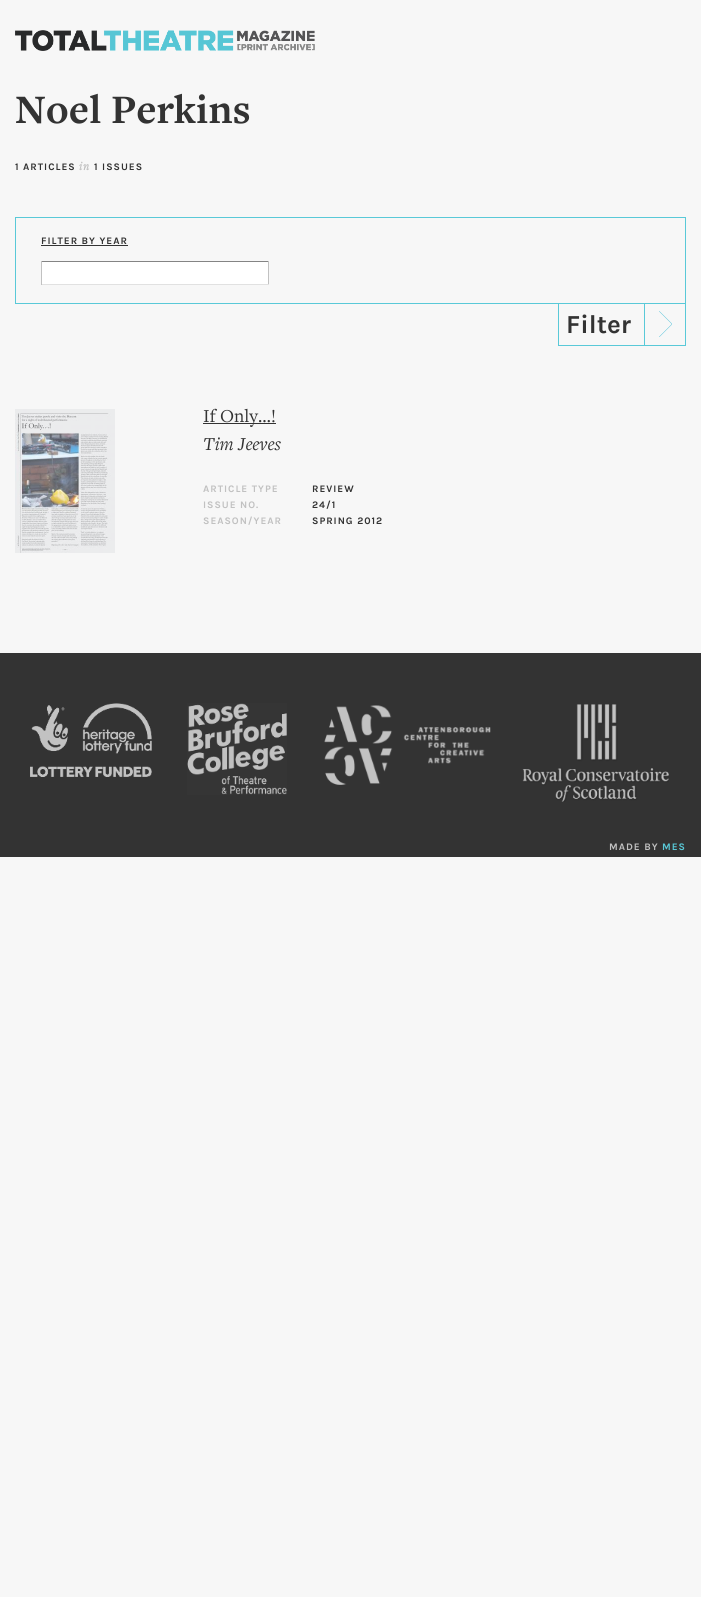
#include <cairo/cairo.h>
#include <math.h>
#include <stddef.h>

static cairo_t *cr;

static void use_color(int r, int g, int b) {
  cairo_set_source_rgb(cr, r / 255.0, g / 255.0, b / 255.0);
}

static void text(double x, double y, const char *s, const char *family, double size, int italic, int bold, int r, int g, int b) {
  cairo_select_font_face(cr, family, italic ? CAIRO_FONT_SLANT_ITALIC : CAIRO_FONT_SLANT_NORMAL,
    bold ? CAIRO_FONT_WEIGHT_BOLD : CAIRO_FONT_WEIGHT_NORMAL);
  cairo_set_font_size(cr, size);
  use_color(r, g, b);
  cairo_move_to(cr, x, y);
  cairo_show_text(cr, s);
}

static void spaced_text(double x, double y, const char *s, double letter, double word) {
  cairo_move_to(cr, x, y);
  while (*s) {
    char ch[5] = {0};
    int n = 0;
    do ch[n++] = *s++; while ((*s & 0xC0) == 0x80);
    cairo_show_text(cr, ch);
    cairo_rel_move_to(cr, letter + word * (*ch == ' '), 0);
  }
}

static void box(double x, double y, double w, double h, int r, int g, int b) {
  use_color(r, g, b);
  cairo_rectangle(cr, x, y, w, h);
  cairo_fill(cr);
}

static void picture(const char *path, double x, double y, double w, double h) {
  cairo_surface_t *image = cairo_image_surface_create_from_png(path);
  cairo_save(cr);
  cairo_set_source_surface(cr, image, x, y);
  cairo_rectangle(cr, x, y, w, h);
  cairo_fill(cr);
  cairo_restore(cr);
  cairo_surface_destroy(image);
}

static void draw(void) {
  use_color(247, 247, 247);
  cairo_paint(cr);
  picture("img_01.png", 15, 30, 300, 21);
  cairo_rectangle(cr, 15.5, 217.5, 670, 86);
  use_color(89, 201, 216);
  cairo_set_line_width(cr, 1);
  cairo_stroke(cr);
  box(41, 245, 87, 1, 51, 51, 51);
  box(42, 262, 226, 22, 255, 255, 255);
  box(41, 261, 228, 1, 132, 132, 132);
  box(268, 261, 1, 24, 193, 193, 193);
  box(41, 284, 228, 1, 225, 225, 225);
  box(41, 261, 1, 24, 193, 193, 193);
  cairo_rectangle(cr, 558.5, 303.5, 127, 42);
  use_color(89, 201, 216);
  cairo_stroke(cr);
  picture("img_02.png", 659, 311, 13, 26);
  box(644, 303, 1, 42, 89, 201, 216);
  picture("img_03.png", 15, 409, 100, 144);
  box(203, 423, 73, 1, 51, 51, 51);
  box(0, 653, 701, 204, 51, 51, 51);
  picture("img_04.png", 30, 703, 122, 74);
  picture("img_05.png", 187, 703, 100, 92);
  picture("img_06.png", 324, 705, 167, 80);
  picture("img_07.png", 522, 704, 147, 98);
  text(15, 123, "Noel Perkins", "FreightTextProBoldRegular", 42, 0, 0, 51, 51, 51);
  cairo_select_font_face(cr, "Karla", CAIRO_FONT_SLANT_NORMAL, CAIRO_FONT_WEIGHT_BOLD);
  cairo_set_font_size(cr, 10);
  spaced_text(15, 170, "1 ARTICLES", 1, 0);
  cairo_select_font_face(cr, "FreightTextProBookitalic", CAIRO_FONT_SLANT_NORMAL, CAIRO_FONT_WEIGHT_BOLD);
  cairo_set_font_size(cr, 12);
  use_color(193, 193, 193);
  spaced_text(79, 170, "in", 1, 0);
  cairo_select_font_face(cr, "Karla", CAIRO_FONT_SLANT_NORMAL, CAIRO_FONT_WEIGHT_BOLD);
  cairo_set_font_size(cr, 10);
  use_color(51, 51, 51);
  spaced_text(94, 170, "1 ISSUES", 1, 0);
  spaced_text(41, 244, "FILTER BY YEAR", 1, 0);
  text(566, 333, "Filter", "Karla", 26, 0, 1, 51, 51, 51);
  text(203, 422, "If Only…!", "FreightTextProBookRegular", 19, 0, 0, 51, 51, 51);
  text(203, 450, "Tim Jeeves", "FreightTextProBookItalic", 19, 0, 0, 51, 51, 51);
  cairo_select_font_face(cr, "Karla", CAIRO_FONT_SLANT_NORMAL, CAIRO_FONT_WEIGHT_BOLD);
  cairo_set_font_size(cr, 10);
  use_color(193, 193, 193);
  spaced_text(203, 492, "ARTICLE TYPE", 1, 0);
  use_color(51, 51, 51);
  spaced_text(312, 492, "REVIEW", 1, 0);
  use_color(193, 193, 193);
  spaced_text(203, 508, "ISSUE NO.", 1, 0);
  use_color(51, 51, 51);
  spaced_text(312, 508, "24/1", 1, 0);
  use_color(193, 193, 193);
  spaced_text(203, 524, "SEASON/YEAR", 1, 0);
  use_color(51, 51, 51);
  spaced_text(312, 524, "SPRING 2012", 1, 0);
  use_color(193, 193, 193);
  spaced_text(609, 850, "MADE BY", 1, 0);
  use_color(89, 201, 216);
  spaced_text(662, 850, "MES", 1, 0);
}

int main(void) {
  cairo_surface_t *surface = cairo_image_surface_create(CAIRO_FORMAT_RGB24, 701, 1597);
  cr = cairo_create(surface);
  cairo_font_options_t *options = cairo_font_options_create();
  cairo_font_options_set_hint_metrics(options, CAIRO_HINT_METRICS_OFF);
  cairo_font_options_set_hint_style(options, CAIRO_HINT_STYLE_NONE);
  cairo_set_font_options(cr, options);
  cairo_set_miter_limit(cr, 4);
  draw();
  cairo_surface_write_to_png(surface, "out.png");
  cairo_font_options_destroy(options);
  cairo_destroy(cr);
  cairo_surface_destroy(surface);
  return 0;
}
